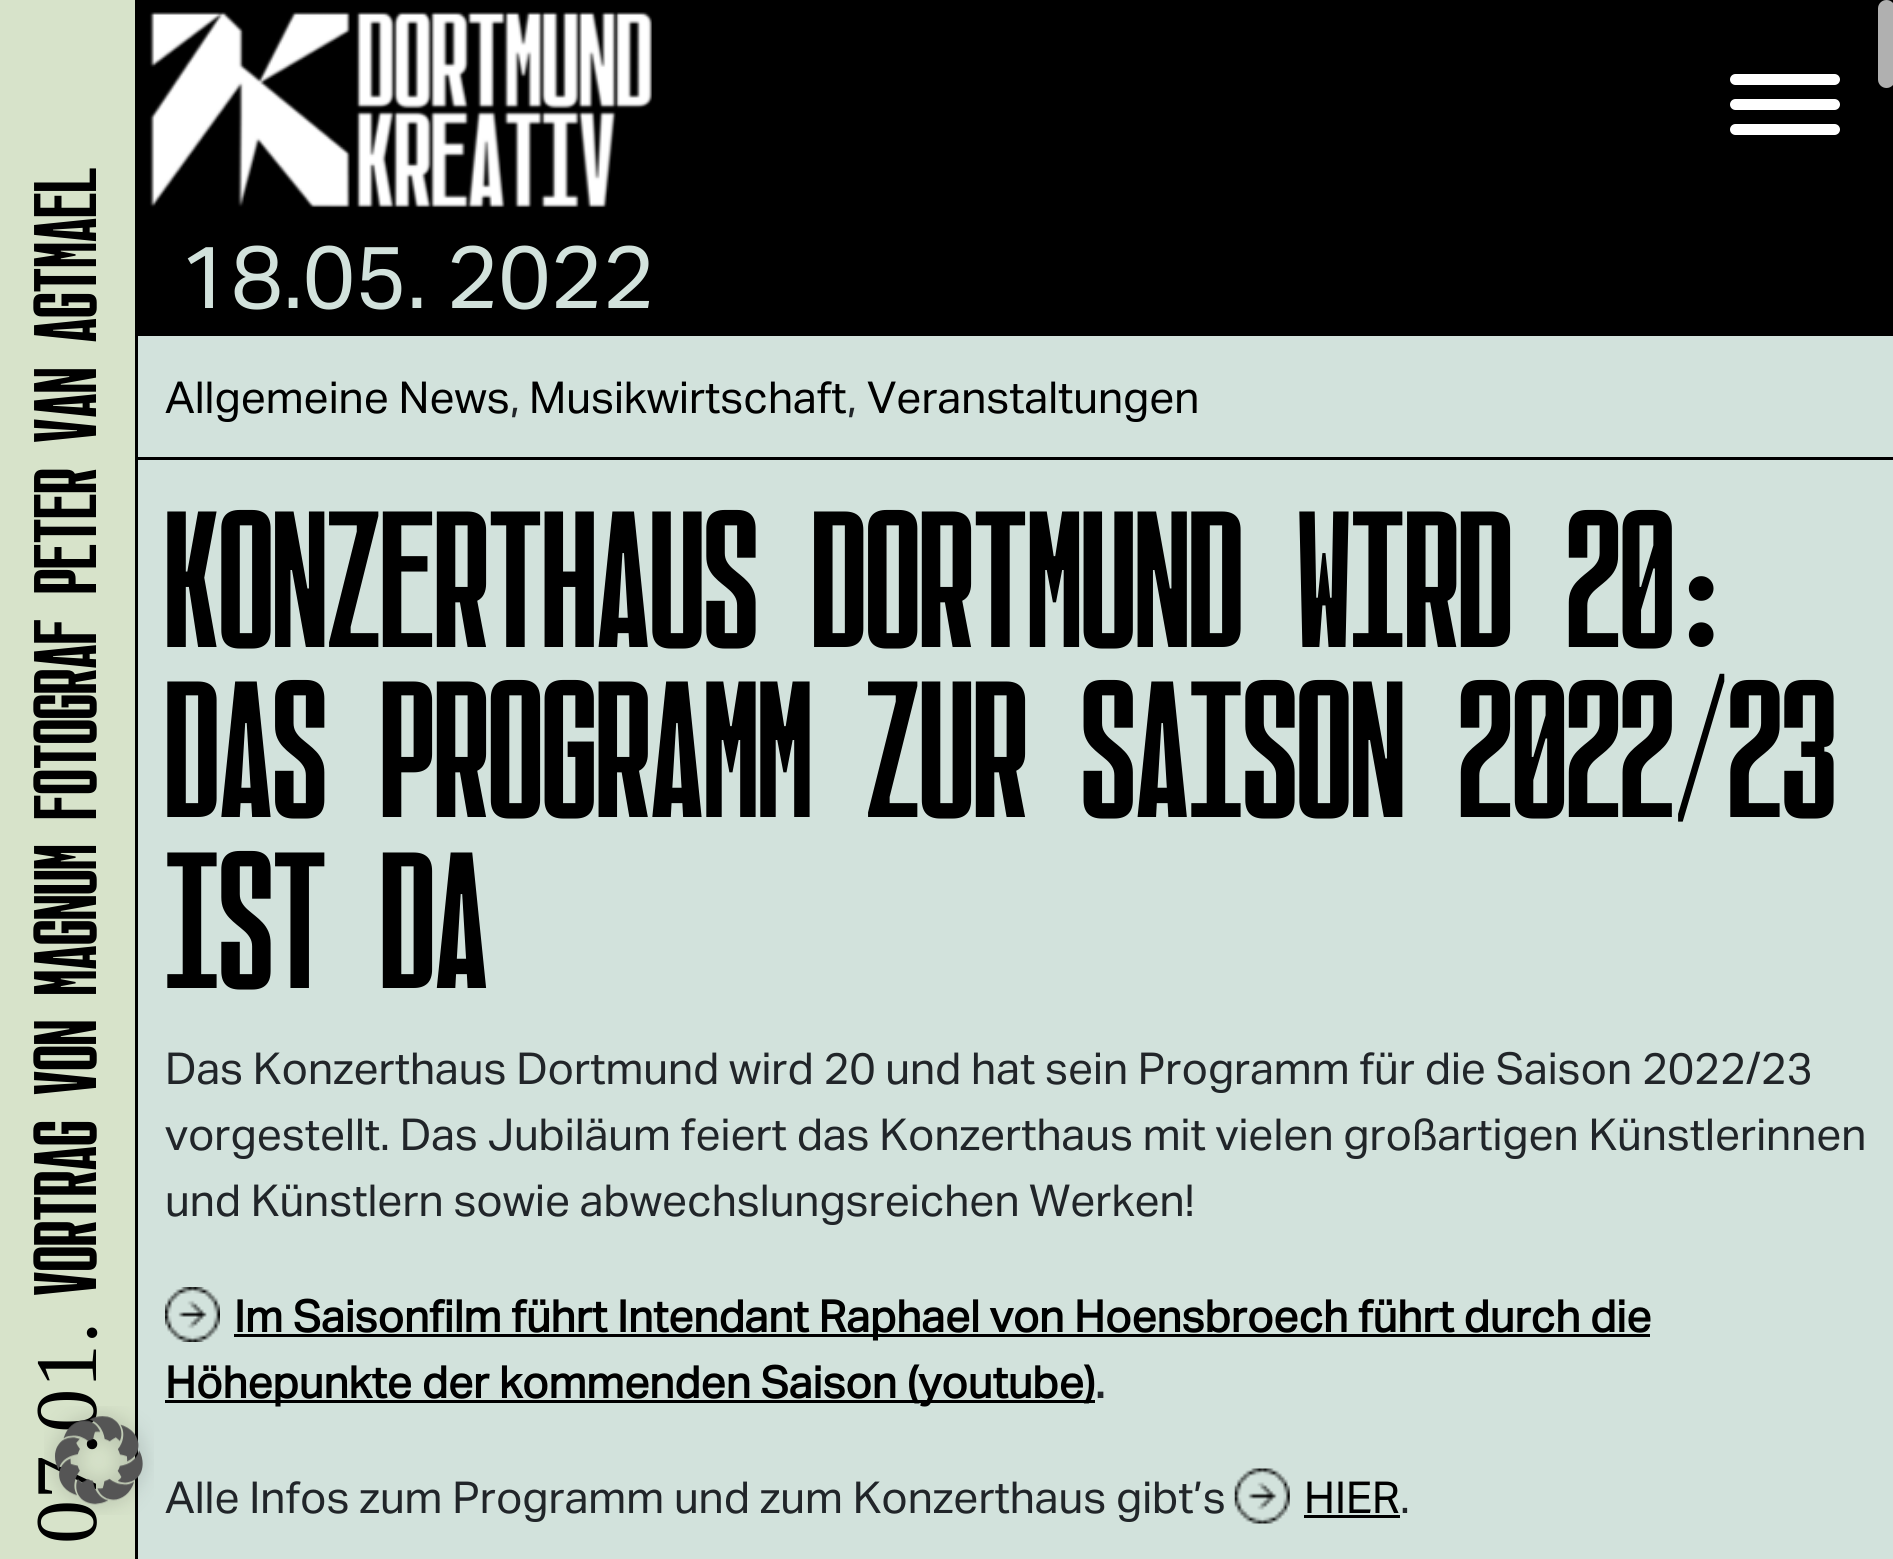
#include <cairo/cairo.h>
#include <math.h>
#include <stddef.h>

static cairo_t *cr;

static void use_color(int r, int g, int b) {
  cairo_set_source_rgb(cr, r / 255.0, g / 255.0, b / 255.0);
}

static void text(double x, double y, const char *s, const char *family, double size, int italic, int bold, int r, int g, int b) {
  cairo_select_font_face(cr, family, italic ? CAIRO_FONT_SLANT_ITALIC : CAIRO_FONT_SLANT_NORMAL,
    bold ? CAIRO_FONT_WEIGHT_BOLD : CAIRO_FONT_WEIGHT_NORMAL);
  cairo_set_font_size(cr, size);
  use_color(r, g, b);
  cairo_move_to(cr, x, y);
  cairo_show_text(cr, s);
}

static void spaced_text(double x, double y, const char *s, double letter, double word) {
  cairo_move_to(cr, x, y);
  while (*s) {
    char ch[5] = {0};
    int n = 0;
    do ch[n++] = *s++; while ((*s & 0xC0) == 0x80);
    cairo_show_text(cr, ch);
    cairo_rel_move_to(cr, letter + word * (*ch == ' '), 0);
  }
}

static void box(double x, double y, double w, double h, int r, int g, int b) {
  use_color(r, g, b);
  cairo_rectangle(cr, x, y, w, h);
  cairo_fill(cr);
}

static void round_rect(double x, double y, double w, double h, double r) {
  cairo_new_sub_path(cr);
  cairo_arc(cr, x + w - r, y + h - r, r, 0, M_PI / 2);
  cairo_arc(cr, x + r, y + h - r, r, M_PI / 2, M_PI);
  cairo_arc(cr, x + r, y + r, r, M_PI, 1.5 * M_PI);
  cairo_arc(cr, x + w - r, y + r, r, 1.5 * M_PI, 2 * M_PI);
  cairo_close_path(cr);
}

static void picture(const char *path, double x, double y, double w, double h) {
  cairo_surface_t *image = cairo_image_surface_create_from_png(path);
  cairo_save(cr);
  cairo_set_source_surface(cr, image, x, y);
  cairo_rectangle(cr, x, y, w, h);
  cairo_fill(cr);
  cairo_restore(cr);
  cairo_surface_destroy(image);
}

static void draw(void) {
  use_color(210, 226, 220);
  cairo_paint(cr);
  box(138, 0, 1755, 336, 0, 0, 0);
  use_color(176, 176, 176);
  round_rect(1879.5, 1.5, 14, 85, 7);
  cairo_fill_preserve(cr);
  cairo_set_line_width(cr, 3);
  cairo_stroke(cr);
  picture("img_01.png", 149, 12, 503, 196);
  use_color(255, 255, 255);
  round_rect(1730, 74, 110, 11, 5.5);
  cairo_fill(cr);
  round_rect(1730, 99, 110, 11, 5.5);
  cairo_fill(cr);
  round_rect(1730, 124, 110, 11, 5.5);
  cairo_fill(cr);
  box(0, 0, 135, 1559, 215, 227, 202);
  box(135, 0, 3, 1559, 0, 0, 0);
  box(138, 457, 1755, 3, 0, 0, 0);
  picture("img_02.png", 165, 1287, 55, 55);
  box(234, 1334, 1416, 3, 0, 0, 0);
  box(165, 1400, 930, 3, 0, 0, 0);
  picture("img_03.png", 1234, 1468, 56, 56);
  box(1304, 1515, 96, 3, 0, 0, 0);
  cairo_select_font_face(cr, "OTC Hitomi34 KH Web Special", CAIRO_FONT_SLANT_NORMAL, CAIRO_FONT_WEIGHT_NORMAL);
  cairo_set_font_size(cr, 88);
  cairo_save(cr);
  cairo_translate(cr, 96, 1296);
  cairo_rotate(cr, -90 * M_PI / 180);
  spaced_text(0, 0, "VORTRAG VON MAGNUM FOTOGRAF PETER VAN AGTMAEL", 0.45, 0);
  cairo_restore(cr);
  cairo_select_font_face(cr, "Liberation Serif", CAIRO_FONT_SLANT_NORMAL, CAIRO_FONT_WEIGHT_NORMAL);
  cairo_save(cr);
  cairo_translate(cr, 96, 1544);
  cairo_rotate(cr, -90 * M_PI / 180);
  spaced_text(0, 0, "07.01.", 0.45, 0);
  cairo_restore(cr);
  text(179, 308, "18.05. 2022", "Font", 88, 0, 0, 210, 226, 220);
  text(165, 413, "Allgemeine News", "Font", 44, 0, 0, 0, 0, 0);
  text(510, 413, ",", "Font", 44, 0, 0, 33, 37, 41);
  text(529, 413, "Musikwirtschaft", "Font", 44, 0, 0, 0, 0, 0);
  text(847, 413, ",", "Font", 44, 0, 0, 33, 37, 41);
  text(867, 413, "Veranstaltungen", "Font", 44, 0, 0, 0, 0, 0);
  text(165, 647, "KONZERTHAUS DORTMUND WIRD 20:", "OTC Hitomi34 KH Web Special", 192.5, 0, 0, 0, 0, 0);
  text(165, 817, "DAS PROGRAMM ZUR SAISON 2022/23", "OTC Hitomi34 KH Web Special", 192.5, 0, 0, 0, 0, 0);
  text(165, 988, "IST DA", "OTC Hitomi34 KH Web Special", 192.5, 0, 0, 0, 0, 0);
  text(165, 1084, "Das Konzerthaus Dortmund wird 20 und hat sein Programm für die Saison 2022/23", "Font", 44, 0, 0, 33, 37, 41);
  text(165, 1150, "vorgestellt. Das Jubiläum feiert das Konzerthaus mit vielen großartigen Künstlerinnen", "Font", 44, 0, 0, 33, 37, 41);
  text(165, 1216, "und Künstlern sowie abwechslungsreichen Werken!", "Font", 44, 0, 0, 33, 37, 41);
  text(234, 1332, "Im Saisonfilm führt Intendant Raphael von Hoensbroech führt durch die", "Font", 44, 0, 1, 0, 0, 0);
  text(165, 1398, "Höhepunkte der kommenden Saison (youtube)", "Font", 44, 0, 1, 0, 0, 0);
  text(1095, 1398, ".", "Font", 44, 0, 1, 33, 37, 41);
  text(165, 1513, "Alle Infos zum Programm und zum Konzerthaus gibt’s", "Font", 44, 0, 0, 33, 37, 41);
  text(1304, 1513, "HIER", "Font", 44, 0, 0, 0, 0, 0);
  text(1400, 1513, ".", "Font", 44, 0, 0, 33, 37, 41);
  picture("img_04.png", 44, 1406, 110, 109);
}

int main(void) {
  cairo_surface_t *surface = cairo_image_surface_create(CAIRO_FORMAT_RGB24, 1893, 1559);
  cr = cairo_create(surface);
  cairo_font_options_t *options = cairo_font_options_create();
  cairo_font_options_set_hint_metrics(options, CAIRO_HINT_METRICS_OFF);
  cairo_font_options_set_hint_style(options, CAIRO_HINT_STYLE_NONE);
  cairo_set_font_options(cr, options);
  cairo_set_miter_limit(cr, 4);
  draw();
  cairo_surface_write_to_png(surface, "out.png");
  cairo_font_options_destroy(options);
  cairo_destroy(cr);
  cairo_surface_destroy(surface);
  return 0;
}
